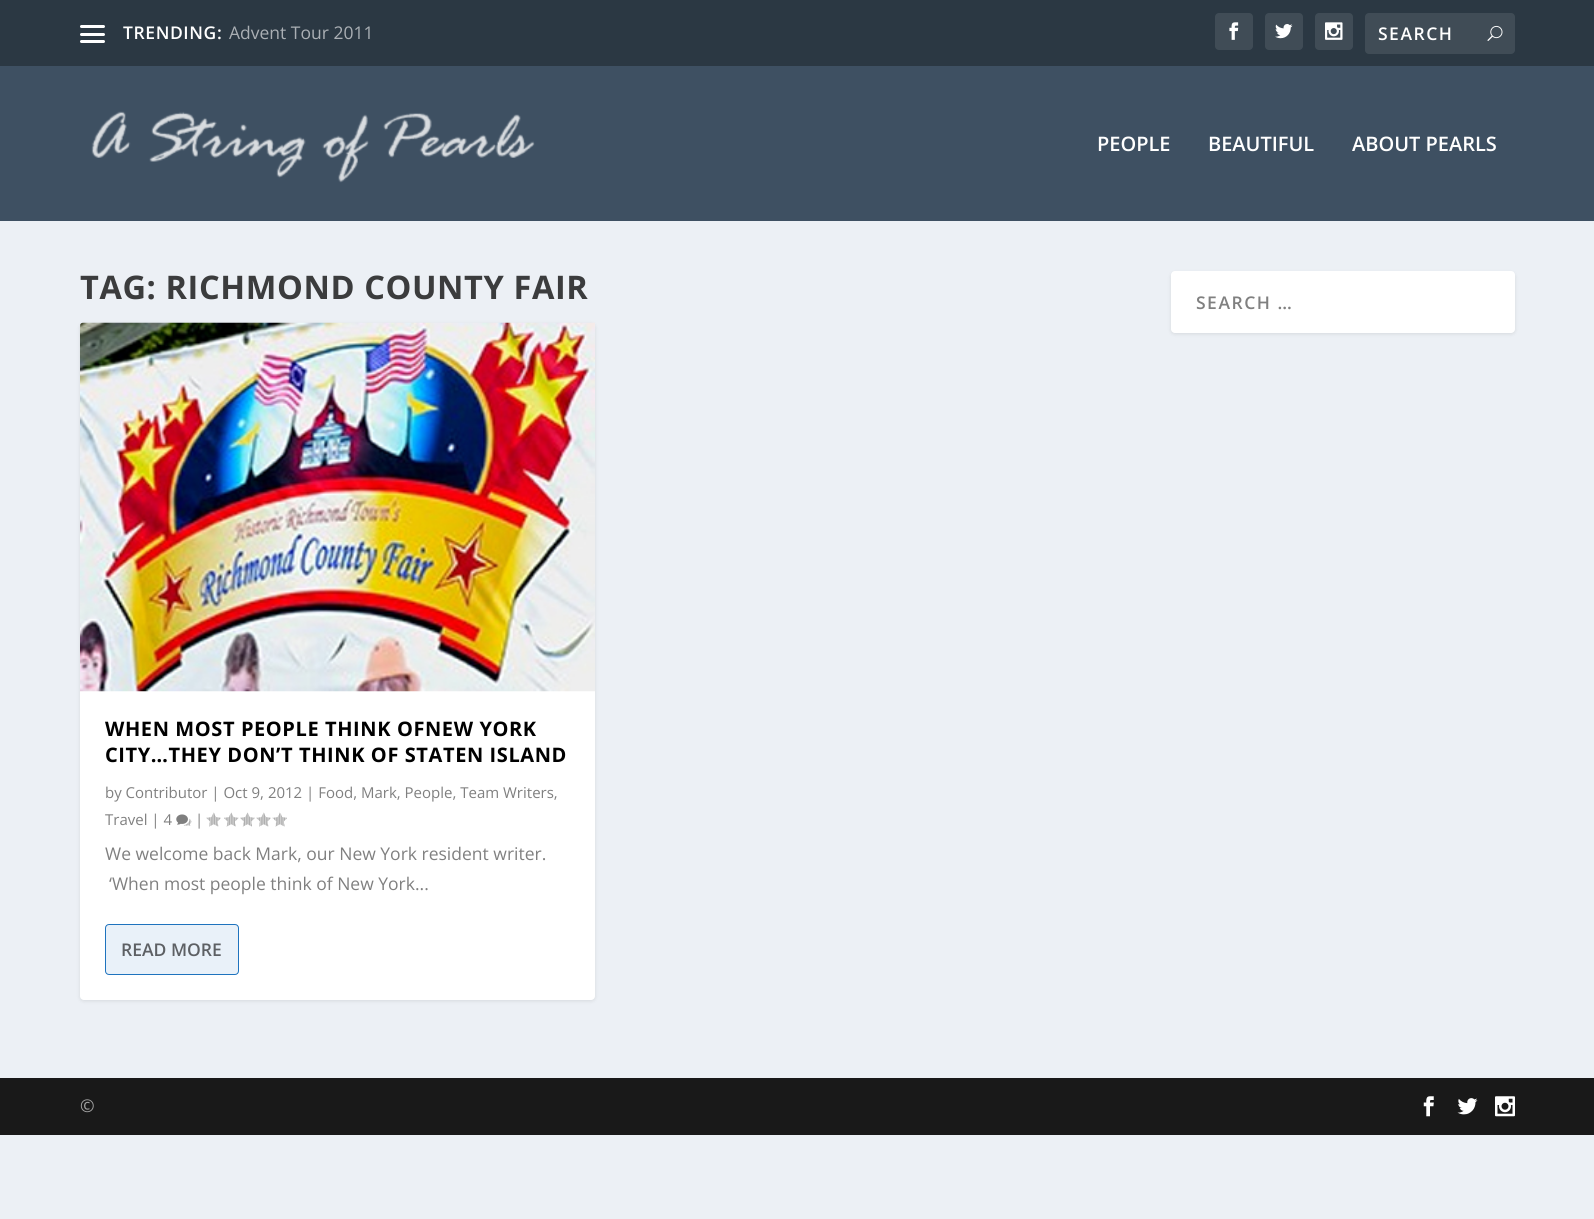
#include <cairo/cairo.h>
#include <math.h>
#include <stddef.h>

static cairo_t *cr;

static void use_color(int r, int g, int b) {
  cairo_set_source_rgb(cr, r / 255.0, g / 255.0, b / 255.0);
}

static void text(double x, double y, const char *s, const char *family, double size, int italic, int bold, int r, int g, int b) {
  cairo_select_font_face(cr, family, italic ? CAIRO_FONT_SLANT_ITALIC : CAIRO_FONT_SLANT_NORMAL,
    bold ? CAIRO_FONT_WEIGHT_BOLD : CAIRO_FONT_WEIGHT_NORMAL);
  cairo_set_font_size(cr, size);
  use_color(r, g, b);
  cairo_move_to(cr, x, y);
  cairo_show_text(cr, s);
}

static void spaced_text(double x, double y, const char *s, double letter, double word) {
  cairo_move_to(cr, x, y);
  while (*s) {
    char ch[5] = {0};
    int n = 0;
    do ch[n++] = *s++; while ((*s & 0xC0) == 0x80);
    cairo_show_text(cr, ch);
    cairo_rel_move_to(cr, letter + word * (*ch == ' '), 0);
  }
}

static void box(double x, double y, double w, double h, int r, int g, int b) {
  use_color(r, g, b);
  cairo_rectangle(cr, x, y, w, h);
  cairo_fill(cr);
}

static void round_rect(double x, double y, double w, double h, double r) {
  cairo_new_sub_path(cr);
  cairo_arc(cr, x + w - r, y + h - r, r, 0, M_PI / 2);
  cairo_arc(cr, x + r, y + h - r, r, M_PI / 2, M_PI);
  cairo_arc(cr, x + r, y + r, r, M_PI, 1.5 * M_PI);
  cairo_arc(cr, x + w - r, y + r, r, 1.5 * M_PI, 2 * M_PI);
  cairo_close_path(cr);
}

static void shadow(double x, double y, double w, double h, double r, double blur, double alpha) {
  cairo_push_group_with_content(cr, CAIRO_CONTENT_ALPHA);
  cairo_set_operator(cr, CAIRO_OPERATOR_SOURCE);
  for (int i = 15; i >= -15 && fmin(w, h) + blur * i / 3 > 0; i -= 2) {
    double e = blur * i / 6;
    cairo_set_source_rgba(cr, 0, 0, 0, alpha * erfc((i - 1) / 8.5) / 2);
    round_rect(x - e, y - e, w + 2 * e, h + 2 * e, fmax(0, fmin(r + e + blur * .6, fmin(w, h) / 2 + e)));
    cairo_fill(cr);
  }
  cairo_pattern_t *soft = cairo_pop_group(cr);
  cairo_mask(cr, soft);
  cairo_pattern_destroy(soft);
}

static void picture(const char *path, double x, double y, double w, double h) {
  cairo_surface_t *image = cairo_image_surface_create_from_png(path);
  cairo_save(cr);
  cairo_set_source_surface(cr, image, x, y);
  cairo_rectangle(cr, x, y, w, h);
  cairo_fill(cr);
  cairo_restore(cr);
  cairo_surface_destroy(image);
}

static void draw(void) {
  use_color(236, 240, 245);
  cairo_paint(cr);
  box(0, 0, 1594, 66, 43, 56, 67);
  use_color(255, 255, 255);
  round_rect(80, 25, 25, 3, 1.5);
  cairo_fill(cr);
  round_rect(80, 33, 25, 3, 1.5);
  cairo_fill(cr);
  round_rect(80, 40, 25, 3, 1.5);
  cairo_fill(cr);
  use_color(64, 76, 86);
  round_rect(1215, 13, 38, 37, 4);
  cairo_fill(cr);
  picture("img_01.png", 1229, 22, 10, 18);
  round_rect(1265, 13, 38, 37, 4);
  cairo_fill(cr);
  picture("img_02.png", 1275, 24, 18, 15);
  round_rect(1315, 13, 38, 37, 4);
  cairo_fill(cr);
  picture("img_03.png", 1325, 22, 18, 18);
  round_rect(1365, 13, 150, 41, 4);
  cairo_fill(cr);
  picture("img_04.png", 1487, 25, 16, 16);
  box(0, 66, 1594, 155, 62, 80, 98);
  picture("img_05.png", 91, 111, 444, 72);
  use_color(0, 0, 0);
  shadow(80, 324, 515, 677, 4, 2, 0.1);
  use_color(255, 255, 255);
  round_rect(80, 323, 515, 677, 4);
  cairo_fill(cr);
  picture("img_06.png", 80, 322, 515, 370);
  picture("img_07.png", 176, 814, 16, 12);
  picture("img_08.png", 206, 812, 15, 15);
  picture("img_09.png", 224, 812, 15, 15);
  picture("img_10.png", 240, 812, 15, 15);
  picture("img_08.png", 256, 812, 15, 15);
  picture("img_11.png", 272, 812, 15, 15);
  use_color(233, 241, 249);
  round_rect(105.5, 924.5, 133, 50, 3.5);
  cairo_fill_preserve(cr);
  use_color(30, 115, 190);
  cairo_set_line_width(cr, 1);
  cairo_stroke(cr);
  use_color(0, 0, 0);
  shadow(1171, 273, 344, 61, 4, 2, 0.1);
  use_color(255, 255, 255);
  round_rect(1171, 271, 344, 62, 4);
  cairo_fill(cr);
  box(0, 1078, 1594, 57, 25, 25, 25);
  picture("img_12.png", 1423, 1096, 11, 21);
  picture("img_13.png", 1457, 1098, 21, 17);
  picture("img_14.png", 1495, 1096, 20, 21);
  cairo_select_font_face(cr, "Open Sans SemiBold", CAIRO_FONT_SLANT_NORMAL, CAIRO_FONT_WEIGHT_NORMAL);
  cairo_set_font_size(cr, 17.5);
  use_color(255, 255, 255);
  spaced_text(123, 39, "TRENDING:", 0.6, 0);
  text(229, 39, "Advent Tour 2011", "Open Sans", 17.5, 0, 0, 170, 175, 180);
  cairo_select_font_face(cr, "Open Sans SemiBold", CAIRO_FONT_SLANT_NORMAL, CAIRO_FONT_WEIGHT_NORMAL);
  use_color(255, 255, 255);
  spaced_text(1378, 40, "SEARCH", 1.5, 0);
  text(1097, 151, "PEOPLE", "Open Sans SemiBold", 20, 0, 0, 255, 255, 255);
  text(1208, 151, "BEAUTIFUL", "Open Sans SemiBold", 20, 0, 0, 255, 255, 255);
  text(1352, 151, "ABOUT PEARLS", "Open Sans SemiBold", 20, 0, 0, 255, 255, 255);
  cairo_select_font_face(cr, "Open Sans", CAIRO_FONT_SLANT_NORMAL, CAIRO_FONT_WEIGHT_BOLD);
  cairo_set_font_size(cr, 32.5);
  use_color(59, 60, 61);
  spaced_text(80, 299, "TAG: RICHMOND COUNTY FAIR", 0.6, 0);
  cairo_set_font_size(cr, 20);
  use_color(0, 0, 0);
  spaced_text(105, 736, "WHEN MOST PEOPLE THINK OFNEW YORK", 0.6, 0);
  spaced_text(105, 762, "CITY…THEY DON’T THINK OF STATEN ISLAND", 0.6, 0);
  text(105, 798, "by Contributor | Oct 9, 2012 | Food, Mark, People, Team Writers,", "Open Sans", 15, 0, 0, 128, 128, 128);
  text(105, 825, "Travel | 4", "Open Sans", 15, 0, 0, 128, 128, 128);
  text(195, 825, "|", "Open Sans", 15, 0, 0, 128, 128, 128);
  text(105, 860, "We welcome back Mark, our New York resident writer.", "Open Sans", 17.5, 0, 0, 128, 128, 128);
  text(109, 890, "‘When most people think of New York...", "Open Sans", 17.5, 0, 0, 128, 128, 128);
  text(121, 956, "READ MORE", "Open Sans SemiBold", 17.5, 0, 0, 93, 96, 100);
  use_color(128, 128, 128);
  spaced_text(1196, 309, "SEARCH …", 1.5, 0);
  text(80, 1112, "©", "Open Sans", 17.5, 0, 0, 163, 163, 163);
}

int main(void) {
  cairo_surface_t *surface = cairo_image_surface_create(CAIRO_FORMAT_RGB24, 1594, 1219);
  cr = cairo_create(surface);
  cairo_font_options_t *options = cairo_font_options_create();
  cairo_font_options_set_hint_metrics(options, CAIRO_HINT_METRICS_OFF);
  cairo_font_options_set_hint_style(options, CAIRO_HINT_STYLE_NONE);
  cairo_set_font_options(cr, options);
  cairo_set_miter_limit(cr, 4);
  draw();
  cairo_surface_write_to_png(surface, "out.png");
  cairo_font_options_destroy(options);
  cairo_destroy(cr);
  cairo_surface_destroy(surface);
  return 0;
}
